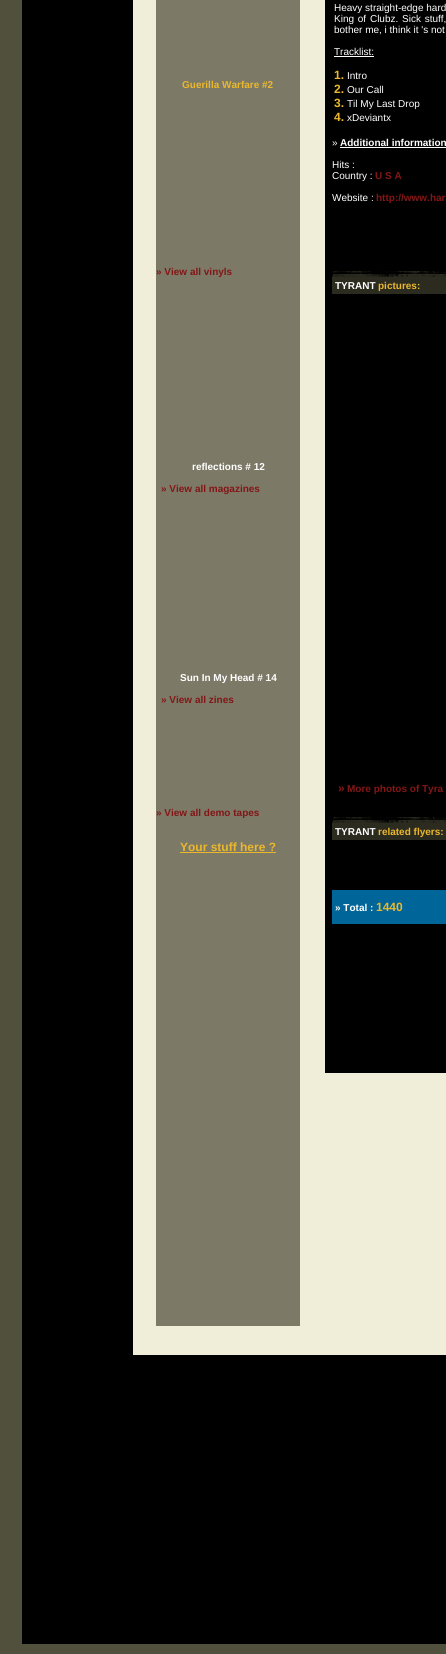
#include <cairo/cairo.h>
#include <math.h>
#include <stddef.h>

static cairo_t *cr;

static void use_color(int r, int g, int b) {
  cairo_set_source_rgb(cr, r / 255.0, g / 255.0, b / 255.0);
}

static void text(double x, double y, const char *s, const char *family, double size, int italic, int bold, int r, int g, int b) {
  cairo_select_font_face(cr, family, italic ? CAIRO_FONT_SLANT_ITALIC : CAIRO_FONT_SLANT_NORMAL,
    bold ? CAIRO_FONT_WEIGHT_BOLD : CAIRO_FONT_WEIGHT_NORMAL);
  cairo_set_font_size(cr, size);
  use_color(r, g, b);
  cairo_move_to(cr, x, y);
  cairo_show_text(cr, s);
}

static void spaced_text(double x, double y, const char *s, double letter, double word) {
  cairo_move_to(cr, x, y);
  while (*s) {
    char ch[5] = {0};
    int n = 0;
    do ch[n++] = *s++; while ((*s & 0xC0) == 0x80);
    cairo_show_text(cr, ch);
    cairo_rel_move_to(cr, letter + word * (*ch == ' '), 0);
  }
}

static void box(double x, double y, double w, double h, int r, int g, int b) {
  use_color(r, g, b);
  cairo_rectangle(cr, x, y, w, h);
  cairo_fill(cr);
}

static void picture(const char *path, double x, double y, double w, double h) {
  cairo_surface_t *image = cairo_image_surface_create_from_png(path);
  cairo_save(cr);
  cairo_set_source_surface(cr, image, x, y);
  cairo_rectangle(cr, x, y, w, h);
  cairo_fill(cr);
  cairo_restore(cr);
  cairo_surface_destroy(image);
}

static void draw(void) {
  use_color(80, 80, 60);
  cairo_paint(cr);
  box(133, 0, 313, 1355, 240, 237, 216);
  box(22, 0, 111, 1355, 0, 0, 0);
  box(156, 0, 144, 1326, 124, 121, 103);
  box(180, 852, 96, 1, 235, 184, 45);
  box(325, 0, 121, 1073, 0, 0, 0);
  box(334, 56, 40, 1, 255, 255, 255);
  box(340, 147, 106, 1, 255, 255, 255);
  picture("img_01.png", 332, 271, 114, 6);
  box(332, 277, 114, 17, 43, 43, 32);
  picture("img_01.png", 332, 817, 114, 6);
  box(332, 823, 114, 17, 43, 43, 32);
  box(332, 890, 114, 34, 0, 102, 153);
  box(22, 1355, 424, 289, 0, 0, 0);
  text(182, 88, "Guerilla Warfare #2", "Liberation Sans", 10, 0, 1, 235, 184, 45);
  text(156, 275, "» View all vinyls", "Liberation Sans", 10, 0, 1, 131, 22, 22);
  text(192, 470, "reflections # 12", "Liberation Sans", 10, 0, 1, 255, 255, 255);
  text(161, 492, "» View all magazines", "Liberation Sans", 10, 0, 1, 131, 22, 22);
  text(180, 681, "Sun In My Head # 14", "Liberation Sans", 10, 0, 1, 255, 255, 255);
  text(161, 703, "» View all zines", "Liberation Sans", 10, 0, 1, 131, 22, 22);
  text(156, 816, "» View all demo tapes", "Liberation Sans", 10, 0, 1, 131, 22, 22);
  text(180, 851, "Your stuff here ?", "Liberation Sans", 12, 0, 1, 235, 184, 45);
  text(334, 11, "Heavy straight-edge hard", "Liberation Sans", 10, 0, 0, 255, 255, 255);
  spaced_text(334, 22, "King of Clubz. Sick stuff,", 0, 1);
  text(334, 33, "bother me, i think it 's not", "Liberation Sans", 10, 0, 0, 255, 255, 255);
  text(334, 55, "Tracklist:", "Liberation Sans", 10, 0, 0, 255, 255, 255);
  text(334, 79, "1.", "Liberation Sans", 12, 0, 1, 235, 184, 45);
  text(347, 79, "Intro", "Liberation Sans", 10, 0, 0, 255, 255, 255);
  text(334, 93, "2.", "Liberation Sans", 12, 0, 1, 235, 184, 45);
  text(347, 93, "Our Call", "Liberation Sans", 10, 0, 0, 255, 255, 255);
  text(334, 107, "3.", "Liberation Sans", 12, 0, 1, 235, 184, 45);
  text(347, 107, "Til My Last Drop", "Liberation Sans", 10, 0, 0, 255, 255, 255);
  text(334, 121, "4.", "Liberation Sans", 12, 0, 1, 235, 184, 45);
  text(347, 121, "xDeviantx", "Liberation Sans", 10, 0, 0, 255, 255, 255);
  text(332, 146, "»", "Liberation Sans", 10, 0, 0, 255, 255, 255);
  text(340, 146, "Additional information", "Liberation Sans", 10, 0, 1, 255, 255, 255);
  text(332, 168, "Hits :", "Liberation Sans", 10, 0, 0, 255, 255, 255);
  text(332, 179, "Country :", "Liberation Sans", 10, 0, 0, 255, 255, 255);
  text(375, 179, "U S A", "Liberation Sans", 10, 0, 1, 131, 22, 22);
  text(332, 201, "Website :", "Liberation Sans", 10, 0, 0, 255, 255, 255);
  text(376, 201, "http://www.har", "Liberation Sans", 10, 0, 1, 131, 22, 22);
  text(335, 289, "TYRANT", "Liberation Sans", 10, 0, 1, 255, 255, 255);
  text(378, 289, "pictures:", "Liberation Sans", 10, 0, 1, 235, 184, 45);
  text(338, 792, "»", "Liberation Sans", 12, 0, 1, 131, 22, 22);
  text(347, 792, "More photos of Tyra", "Liberation Sans", 10, 0, 1, 131, 22, 22);
  text(335, 835, "TYRANT", "Liberation Sans", 10, 0, 1, 255, 255, 255);
  text(378, 835, "related flyers:", "Liberation Sans", 10, 0, 1, 235, 184, 45);
  text(335, 911, "» Total :", "Liberation Sans", 10, 0, 1, 255, 255, 255);
  text(376, 911, "1440", "Liberation Sans", 12, 0, 1, 235, 184, 45);
}

int main(void) {
  cairo_surface_t *surface = cairo_image_surface_create(CAIRO_FORMAT_RGB24, 446, 1654);
  cr = cairo_create(surface);
  cairo_font_options_t *options = cairo_font_options_create();
  cairo_font_options_set_hint_metrics(options, CAIRO_HINT_METRICS_OFF);
  cairo_font_options_set_hint_style(options, CAIRO_HINT_STYLE_NONE);
  cairo_set_font_options(cr, options);
  cairo_set_miter_limit(cr, 4);
  draw();
  cairo_surface_write_to_png(surface, "out.png");
  cairo_font_options_destroy(options);
  cairo_destroy(cr);
  cairo_surface_destroy(surface);
  return 0;
}
